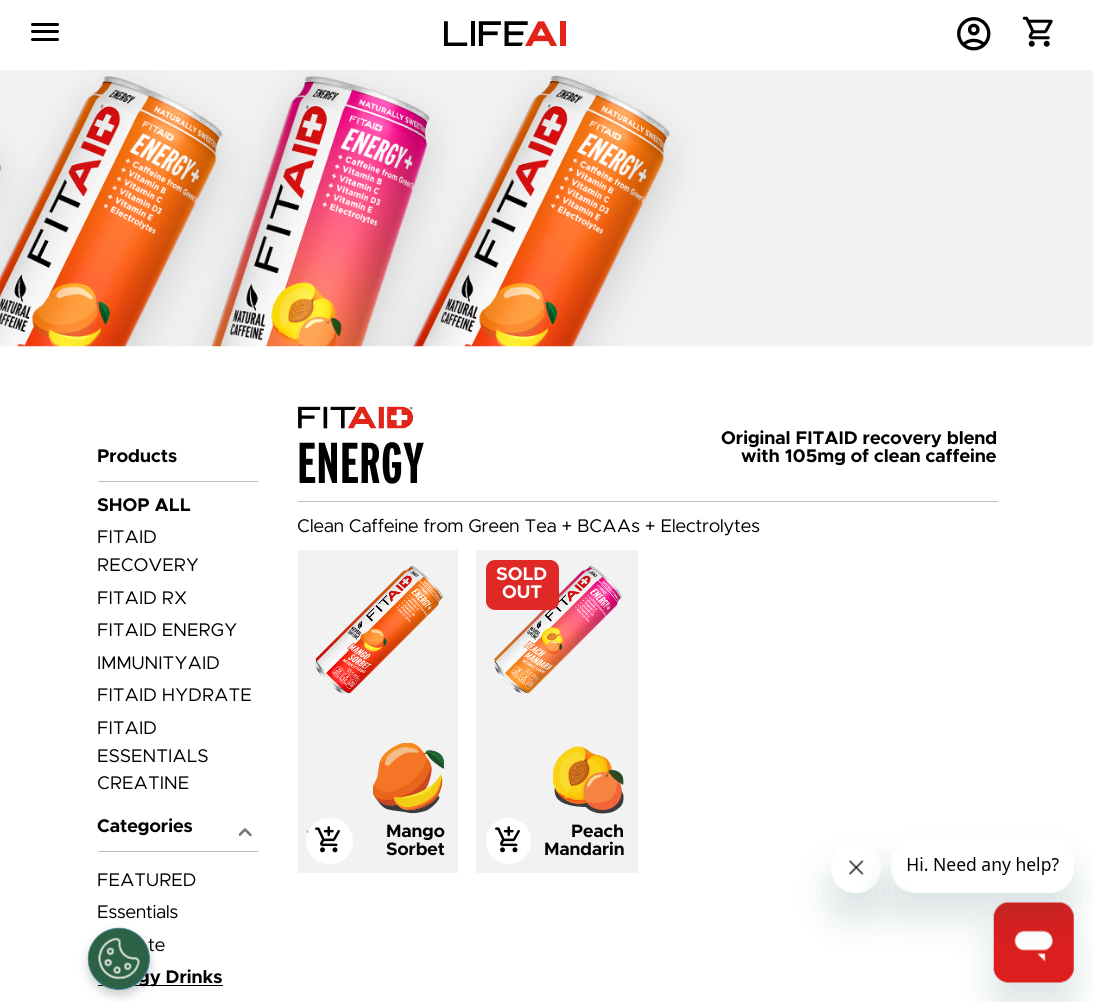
#include <cairo/cairo.h>
#include <math.h>
#include <stddef.h>

static cairo_t *cr;

static void use_color(int r, int g, int b) {
  cairo_set_source_rgb(cr, r / 255.0, g / 255.0, b / 255.0);
}

static void text(double x, double y, const char *s, const char *family, double size, int italic, int bold, int r, int g, int b) {
  cairo_select_font_face(cr, family, italic ? CAIRO_FONT_SLANT_ITALIC : CAIRO_FONT_SLANT_NORMAL,
    bold ? CAIRO_FONT_WEIGHT_BOLD : CAIRO_FONT_WEIGHT_NORMAL);
  cairo_set_font_size(cr, size);
  use_color(r, g, b);
  cairo_move_to(cr, x, y);
  cairo_show_text(cr, s);
}

static void box(double x, double y, double w, double h, int r, int g, int b) {
  use_color(r, g, b);
  cairo_rectangle(cr, x, y, w, h);
  cairo_fill(cr);
}

static void round_rect(double x, double y, double w, double h, double r) {
  cairo_new_sub_path(cr);
  cairo_arc(cr, x + w - r, y + h - r, r, 0, M_PI / 2);
  cairo_arc(cr, x + r, y + h - r, r, M_PI / 2, M_PI);
  cairo_arc(cr, x + r, y + r, r, M_PI, 1.5 * M_PI);
  cairo_arc(cr, x + w - r, y + r, r, 1.5 * M_PI, 2 * M_PI);
  cairo_close_path(cr);
}

static void shadow(double x, double y, double w, double h, double r, double blur, double alpha) {
  cairo_push_group_with_content(cr, CAIRO_CONTENT_ALPHA);
  cairo_set_operator(cr, CAIRO_OPERATOR_SOURCE);
  for (int i = 15; i >= -15 && fmin(w, h) + blur * i / 3 > 0; i -= 2) {
    double e = blur * i / 6;
    cairo_set_source_rgba(cr, 0, 0, 0, alpha * erfc((i - 1) / 8.5) / 2);
    round_rect(x - e, y - e, w + 2 * e, h + 2 * e, fmax(0, fmin(r + e + blur * .6, fmin(w, h) / 2 + e)));
    cairo_fill(cr);
  }
  cairo_pattern_t *soft = cairo_pop_group(cr);
  cairo_mask(cr, soft);
  cairo_pattern_destroy(soft);
}

static void picture(const char *path, double x, double y, double w, double h) {
  cairo_surface_t *image = cairo_image_surface_create_from_png(path);
  cairo_save(cr);
  cairo_set_source_surface(cr, image, x, y);
  cairo_rectangle(cr, x, y, w, h);
  cairo_fill(cr);
  cairo_restore(cr);
  cairo_surface_destroy(image);
}

static void draw(void) {
  use_color(255, 255, 255);
  cairo_paint(cr);
  use_color(0, 0, 0);
  round_rect(31, 23, 28, 3, 1.5);
  cairo_fill(cr);
  round_rect(31, 30, 28, 3, 1.5);
  cairo_fill(cr);
  round_rect(31, 38, 28, 3, 1.5);
  cairo_fill(cr);
  picture("img_01.png", 444, 21, 122, 25);
  picture("img_02.png", 957, 17, 34, 34);
  picture("img_03.png", 1022, 16, 31, 31);
  picture("img_04.png", 0, 70, 1093, 277);
  box(98, 481, 160, 1, 191, 191, 191);
  box(98, 851, 160, 1, 191, 191, 191);
  cairo_save(cr);
  cairo_rectangle(cr, 239, 828, 14, 8);
  cairo_clip(cr);
  cairo_new_path(cr);
  cairo_move_to(cr, 239.5, 835);
  cairo_line_to(cr, 245, 829.5);
  cairo_line_to(cr, 250.5, 835);
  use_color(120, 119, 119);
  cairo_set_line_width(cr, 2.6);
  cairo_set_line_cap(cr, CAIRO_LINE_CAP_ROUND);
  cairo_set_line_join(cr, CAIRO_LINE_JOIN_ROUND);
  cairo_stroke(cr);
  cairo_restore(cr);
  box(98, 985, 125, 1, 0, 0, 0);
  box(298, 501, 700, 1, 191, 191, 191);
  picture("img_05.png", 298, 406, 115, 23);
  box(298, 550, 160, 323, 242, 242, 242);
  picture("img_06.png", 315, 565, 128, 129);
  use_color(255, 255, 255);
  round_rect(306, 818, 47, 46, 23);
  cairo_fill(cr);
  use_color(205, 205, 205);
  cairo_arc(cr, 307.5, 831.5, 1.5, 0, 2 * M_PI);
  cairo_fill(cr);
  picture("img_07.png", 315, 826, 25, 27);
  picture("img_08.png", 373, 743, 71, 71);
  box(476, 550, 162, 323, 242, 242, 242);
  picture("img_09.png", 494, 565, 128, 129);
  use_color(223, 41, 39);
  round_rect(486, 560, 73, 50, 9);
  cairo_fill(cr);
  use_color(255, 255, 255);
  round_rect(486, 818, 45, 46, 22.5);
  cairo_fill(cr);
  picture("img_07.png", 495, 826, 25, 27);
  picture("img_10.png", 553, 746, 71, 68);
  use_color(0, 0, 0);
  shadow(88, 933, 62, 62, 31, 5, 0.2);
  cairo_save(cr);
  cairo_set_fill_rule(cr, CAIRO_FILL_RULE_EVEN_ODD);
  cairo_new_path(cr);
  cairo_move_to(cr, 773, 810);
  cairo_line_to(cr, 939, 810);
  cairo_line_to(cr, 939, 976);
  cairo_line_to(cr, 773, 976);
  cairo_close_path(cr);
  cairo_move_to(cr, 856, 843);
  cairo_curve_to(cr, 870, 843, 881, 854, 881, 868);
  cairo_curve_to(cr, 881, 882, 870, 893, 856, 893);
  cairo_curve_to(cr, 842, 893, 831, 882, 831, 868);
  cairo_curve_to(cr, 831, 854, 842, 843, 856, 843);
  cairo_close_path(cr);
  cairo_clip(cr);
  use_color(23, 73, 77);
  shadow(831, 868, 50, 50, 25, 19, 0.15);
  cairo_restore(cr);
  picture("img_13.png", 842, 860, 22, 33);
  use_color(23, 73, 77);
  shadow(994, 928, 80, 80, 15, 19, 0.15);
  picture("img_14.png", 993, 902, 81, 81);
  cairo_save(cr);
  cairo_set_fill_rule(cr, CAIRO_FILL_RULE_EVEN_ODD);
  cairo_new_path(cr);
  cairo_move_to(cr, 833, 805);
  cairo_line_to(cr, 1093, 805);
  cairo_line_to(cr, 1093, 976);
  cairo_line_to(cr, 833, 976);
  cairo_close_path(cr);
  cairo_move_to(cr, 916, 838);
  cairo_line_to(cr, 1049, 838);
  cairo_curve_to(cr, 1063, 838, 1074, 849, 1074, 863);
  cairo_line_to(cr, 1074, 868);
  cairo_curve_to(cr, 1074, 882, 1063, 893, 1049, 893);
  cairo_line_to(cr, 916, 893);
  cairo_curve_to(cr, 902, 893, 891, 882, 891, 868);
  cairo_line_to(cr, 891, 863);
  cairo_curve_to(cr, 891, 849, 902, 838, 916, 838);
  cairo_close_path(cr);
  cairo_clip(cr);
  shadow(891, 863, 183, 55, 25, 19, 0.15);
  cairo_restore(cr);
  picture("img_12.png", 893, 857, 166, 29);
  text(97, 462, "Products", "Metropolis", 18.4, 0, 1, 0, 0, 0);
  text(97, 511, "SHOP ALL", "Metropolis", 18.4, 0, 1, 0, 0, 0);
  text(97, 543, "FITAID", "Metropolis", 18.4, 0, 0, 0, 0, 0);
  text(97, 571, "RECOVERY", "Metropolis", 18.4, 0, 0, 0, 0, 0);
  text(97, 604, "FITAID RX", "Metropolis", 18.4, 0, 0, 0, 0, 0);
  text(97, 636, "FITAID ENERGY", "Metropolis", 18.4, 0, 0, 0, 0, 0);
  text(97, 669, "IMMUNITYAID", "Metropolis", 18.4, 0, 0, 0, 0, 0);
  text(97, 701, "FITAID HYDRATE", "Metropolis", 18.4, 0, 0, 0, 0, 0);
  text(97, 734, "FITAID", "Metropolis", 18.4, 0, 0, 0, 0, 0);
  text(97, 762, "ESSENTIALS", "Metropolis", 18.4, 0, 0, 0, 0, 0);
  text(97, 789, "CREATINE", "Metropolis", 18.4, 0, 0, 0, 0, 0);
  text(97, 832, "Categories", "Metropolis", 18.4, 0, 1, 0, 0, 0);
  text(97, 886, "FEATURED", "Metropolis", 18.4, 0, 0, 0, 0, 0);
  text(97, 918, "Essentials", "Metropolis", 18.4, 0, 0, 0, 0, 0);
  text(148, 951, "te", "Metropolis", 18.4, 0, 0, 0, 0, 0);
  text(138, 983, "gy Drinks", "Metropolis", 18.4, 0, 1, 0, 0, 0);
  text(297, 483, "ENERGY", "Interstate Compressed", 57.5, 0, 1, 0, 0, 0);
  text(721, 444, "Original FITAID recovery blend", "Metropolis", 18.4, 0, 1, 0, 0, 0);
  text(741, 462, "with 105mg of clean caffeine", "Metropolis", 18.4, 0, 1, 0, 0, 0);
  text(297, 532, "Clean Caffeine from Green Tea + BCAAs + Electrolytes", "Metropolis", 18.4, 0, 0, 0, 0, 0);
  text(386, 837, "Mango", "Metropolis", 18, 0, 1, 0, 0, 0);
  text(386, 855, "Sorbet", "Metropolis", 18, 0, 1, 0, 0, 0);
  text(496, 580, "SOLD", "Metropolis", 18.4, 0, 1, 255, 255, 255);
  text(502, 598, "OUT", "Metropolis", 18.4, 0, 1, 255, 255, 255);
  text(571, 837, "Peach", "Metropolis", 18, 0, 1, 0, 0, 0);
  text(544, 855, "Mandarin", "Metropolis", 18, 0, 1, 0, 0, 0);
  use_color(106, 170, 228);
  cairo_new_path(cr);
  cairo_arc(cr, 119, 959, 31, 0, 2 * M_PI);
  cairo_fill(cr);
  picture("img_11.png", 87, 927, 63, 63);
}

int main(void) {
  cairo_surface_t *surface = cairo_image_surface_create(CAIRO_FORMAT_RGB24, 1093, 1002);
  cr = cairo_create(surface);
  cairo_font_options_t *options = cairo_font_options_create();
  cairo_font_options_set_hint_metrics(options, CAIRO_HINT_METRICS_OFF);
  cairo_font_options_set_hint_style(options, CAIRO_HINT_STYLE_NONE);
  cairo_set_font_options(cr, options);
  cairo_set_miter_limit(cr, 4);
  draw();
  cairo_surface_write_to_png(surface, "out.png");
  cairo_font_options_destroy(options);
  cairo_destroy(cr);
  cairo_surface_destroy(surface);
  return 0;
}
